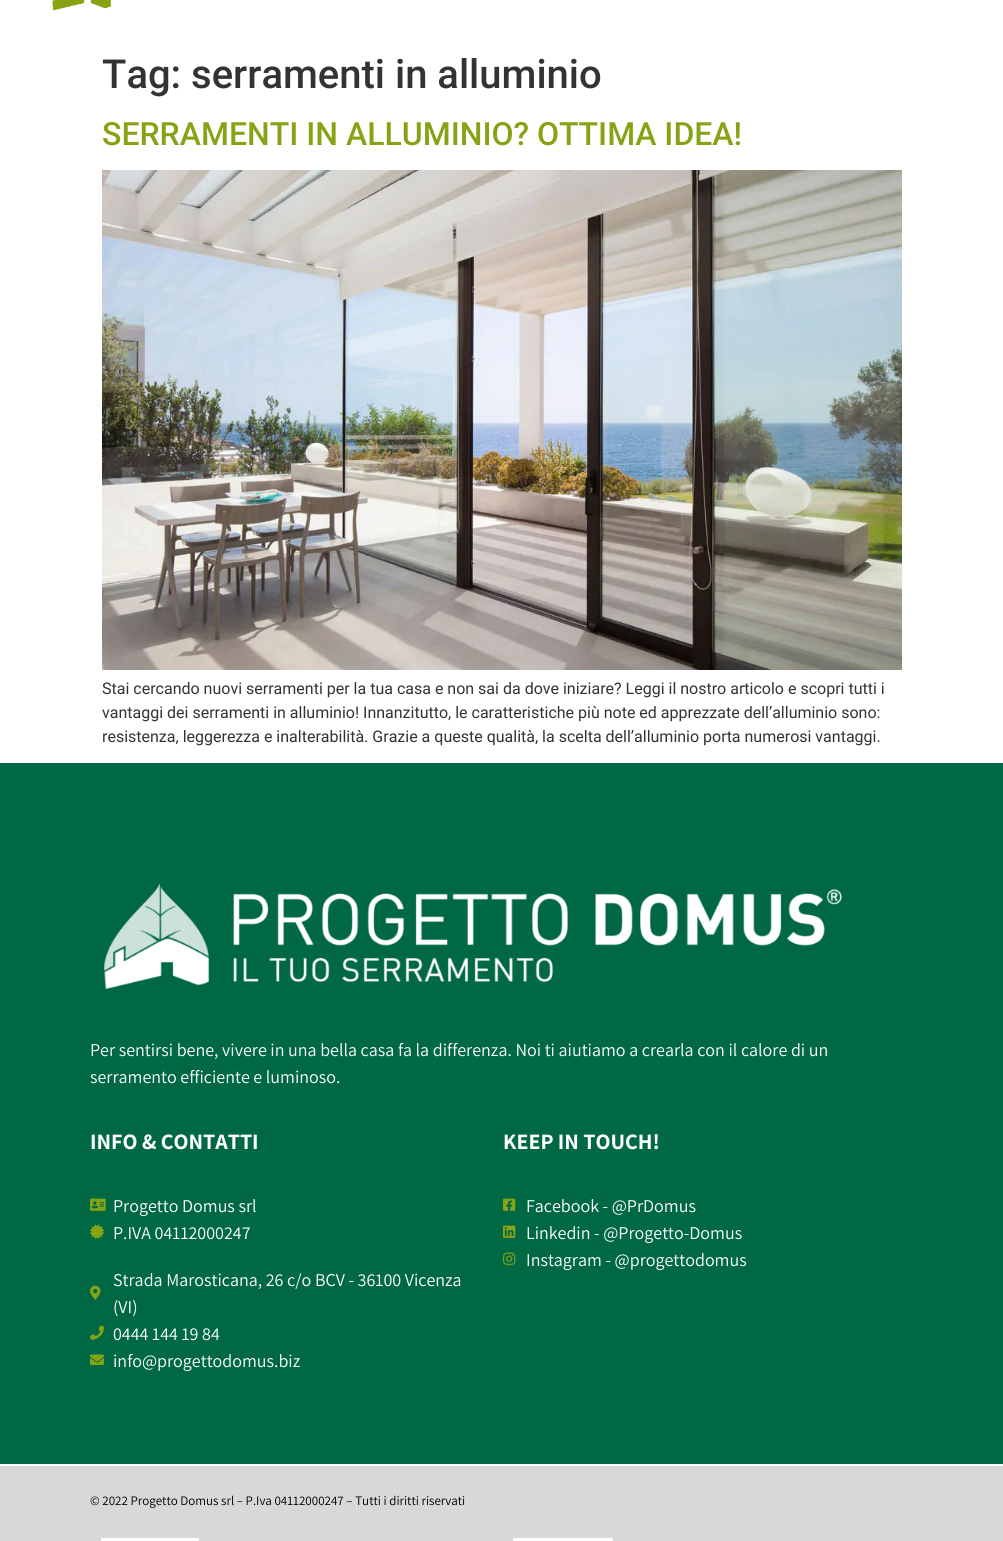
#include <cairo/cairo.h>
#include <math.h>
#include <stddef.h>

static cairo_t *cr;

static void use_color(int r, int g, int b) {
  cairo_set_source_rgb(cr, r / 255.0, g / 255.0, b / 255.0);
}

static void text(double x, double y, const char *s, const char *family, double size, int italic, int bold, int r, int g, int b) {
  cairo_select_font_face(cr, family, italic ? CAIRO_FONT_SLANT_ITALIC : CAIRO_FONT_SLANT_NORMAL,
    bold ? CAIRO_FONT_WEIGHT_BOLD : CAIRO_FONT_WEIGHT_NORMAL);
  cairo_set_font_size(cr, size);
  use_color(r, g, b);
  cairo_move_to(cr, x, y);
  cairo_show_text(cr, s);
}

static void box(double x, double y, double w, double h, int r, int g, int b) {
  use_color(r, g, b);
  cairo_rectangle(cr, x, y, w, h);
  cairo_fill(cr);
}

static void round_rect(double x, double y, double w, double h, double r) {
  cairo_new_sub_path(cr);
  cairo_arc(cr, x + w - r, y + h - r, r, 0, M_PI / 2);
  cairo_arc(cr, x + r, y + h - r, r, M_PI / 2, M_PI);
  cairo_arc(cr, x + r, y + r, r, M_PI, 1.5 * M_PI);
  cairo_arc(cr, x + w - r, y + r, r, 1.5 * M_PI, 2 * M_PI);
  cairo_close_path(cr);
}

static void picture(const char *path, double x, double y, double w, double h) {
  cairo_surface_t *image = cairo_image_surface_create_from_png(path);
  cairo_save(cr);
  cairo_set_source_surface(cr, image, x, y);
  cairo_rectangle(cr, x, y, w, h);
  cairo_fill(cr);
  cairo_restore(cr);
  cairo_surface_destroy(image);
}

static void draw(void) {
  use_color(255, 255, 255);
  cairo_paint(cr);
  picture("img_01.png", 52, 0, 60, 11);
  picture("img_02.png", 102, 170, 800, 500);
  box(0, 763, 1003, 701, 0, 105, 68);
  picture("img_03.png", 103, 883, 739, 106);
  picture("img_04.png", 90, 1198, 16, 13);
  picture("img_05.png", 90, 1224, 14, 15);
  picture("img_06.png", 90, 1285, 11, 15);
  picture("img_07.png", 90, 1325, 14, 15);
  picture("img_08.png", 90, 1354, 14, 11);
  picture("img_09.png", 503, 1198, 13, 13);
  picture("img_10.png", 503, 1225, 13, 13);
  picture("img_11.png", 503, 1252, 13, 13);
  box(0, 1466, 1003, 75, 216, 216, 216);
  use_color(255, 255, 255);
  round_rect(100, 1537, 100, 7, 3);
  cairo_fill(cr);
  round_rect(100.5, 1537.5, 99, 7, 2.5);
  cairo_set_source_rgba(cr, 0, 0, 0, 0.15);
  cairo_set_line_width(cr, 1);
  cairo_stroke(cr);
  use_color(255, 255, 255);
  round_rect(512, 1537, 102, 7, 3);
  cairo_fill(cr);
  round_rect(512.5, 1537.5, 101, 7, 2.5);
  cairo_set_source_rgba(cr, 0, 0, 0, 0.15);
  cairo_stroke(cr);
  text(102, 88, "Tag: serramenti in alluminio", "Roboto Medium", 40, 0, 0, 51, 51, 51);
  text(102, 145, "SERRAMENTI IN ALLUMINIO? OTTIMA IDEA!", "Roboto Medium", 32, 0, 0, 134, 163, 21);
  text(102, 694, "Stai cercando nuovi serramenti per la tua casa e non sai da dove iniziare? Leggi il nostro articolo e scopri tutti i", "Roboto", 16, 0, 0, 51, 51, 51);
  text(102, 718, "vantaggi dei serramenti in alluminio! Innanzitutto, le caratteristiche più note ed apprezzate dell’alluminio sono:", "Roboto", 16, 0, 0, 51, 51, 51);
  text(102, 742, "resistenza, leggerezza e inalterabilità. Grazie a queste qualità, la scelta dell’alluminio porta numerosi vantaggi.", "Roboto", 16, 0, 0, 51, 51, 51);
  text(90, 1056, "Per sentirsi bene, vivere in una bella casa fa la differenza. Noi ti aiutiamo a crearla con il calore di un", "Assistant", 18, 0, 0, 255, 255, 255);
  text(90, 1083, "serramento efficiente e luminoso.", "Assistant", 18, 0, 0, 255, 255, 255);
  text(90, 1149, "INFO & CONTATTI", "Assistant", 22, 0, 1, 255, 255, 255);
  text(113, 1212, "Progetto Domus srl", "Assistant", 18, 0, 0, 255, 255, 255);
  text(113, 1239, "P.IVA 04112000247", "Assistant", 18, 0, 0, 255, 255, 255);
  text(113, 1286, "Strada Marosticana, 26 c/o BCV - 36100 Vicenza", "Assistant", 18, 0, 0, 255, 255, 255);
  text(113, 1313, "(VI)", "Assistant", 18, 0, 0, 255, 255, 255);
  text(113, 1340, "0444 144 19 84", "Assistant", 18, 0, 0, 255, 255, 255);
  text(113, 1367, "info@progettodomus.biz", "Assistant", 18, 0, 0, 255, 255, 255);
  text(503, 1149, "KEEP IN TOUCH!", "Assistant", 22, 0, 1, 255, 255, 255);
  text(526, 1212, "Facebook - @PrDomus", "Assistant", 18, 0, 0, 255, 255, 255);
  text(526, 1239, "Linkedin - @Progetto-Domus", "Assistant", 18, 0, 0, 255, 255, 255);
  text(526, 1266, "Instagram - @progettodomus", "Assistant", 18, 0, 0, 255, 255, 255);
  text(90, 1505, "© 2022 Progetto Domus srl – P.Iva 04112000247 – Tutti i diritti riservati", "Assistant", 13, 0, 0, 0, 0, 0);
}

int main(void) {
  cairo_surface_t *surface = cairo_image_surface_create(CAIRO_FORMAT_RGB24, 1003, 1541);
  cr = cairo_create(surface);
  cairo_font_options_t *options = cairo_font_options_create();
  cairo_font_options_set_hint_metrics(options, CAIRO_HINT_METRICS_OFF);
  cairo_font_options_set_hint_style(options, CAIRO_HINT_STYLE_NONE);
  cairo_set_font_options(cr, options);
  cairo_set_miter_limit(cr, 4);
  draw();
  cairo_surface_write_to_png(surface, "out.png");
  cairo_font_options_destroy(options);
  cairo_destroy(cr);
  cairo_surface_destroy(surface);
  return 0;
}
